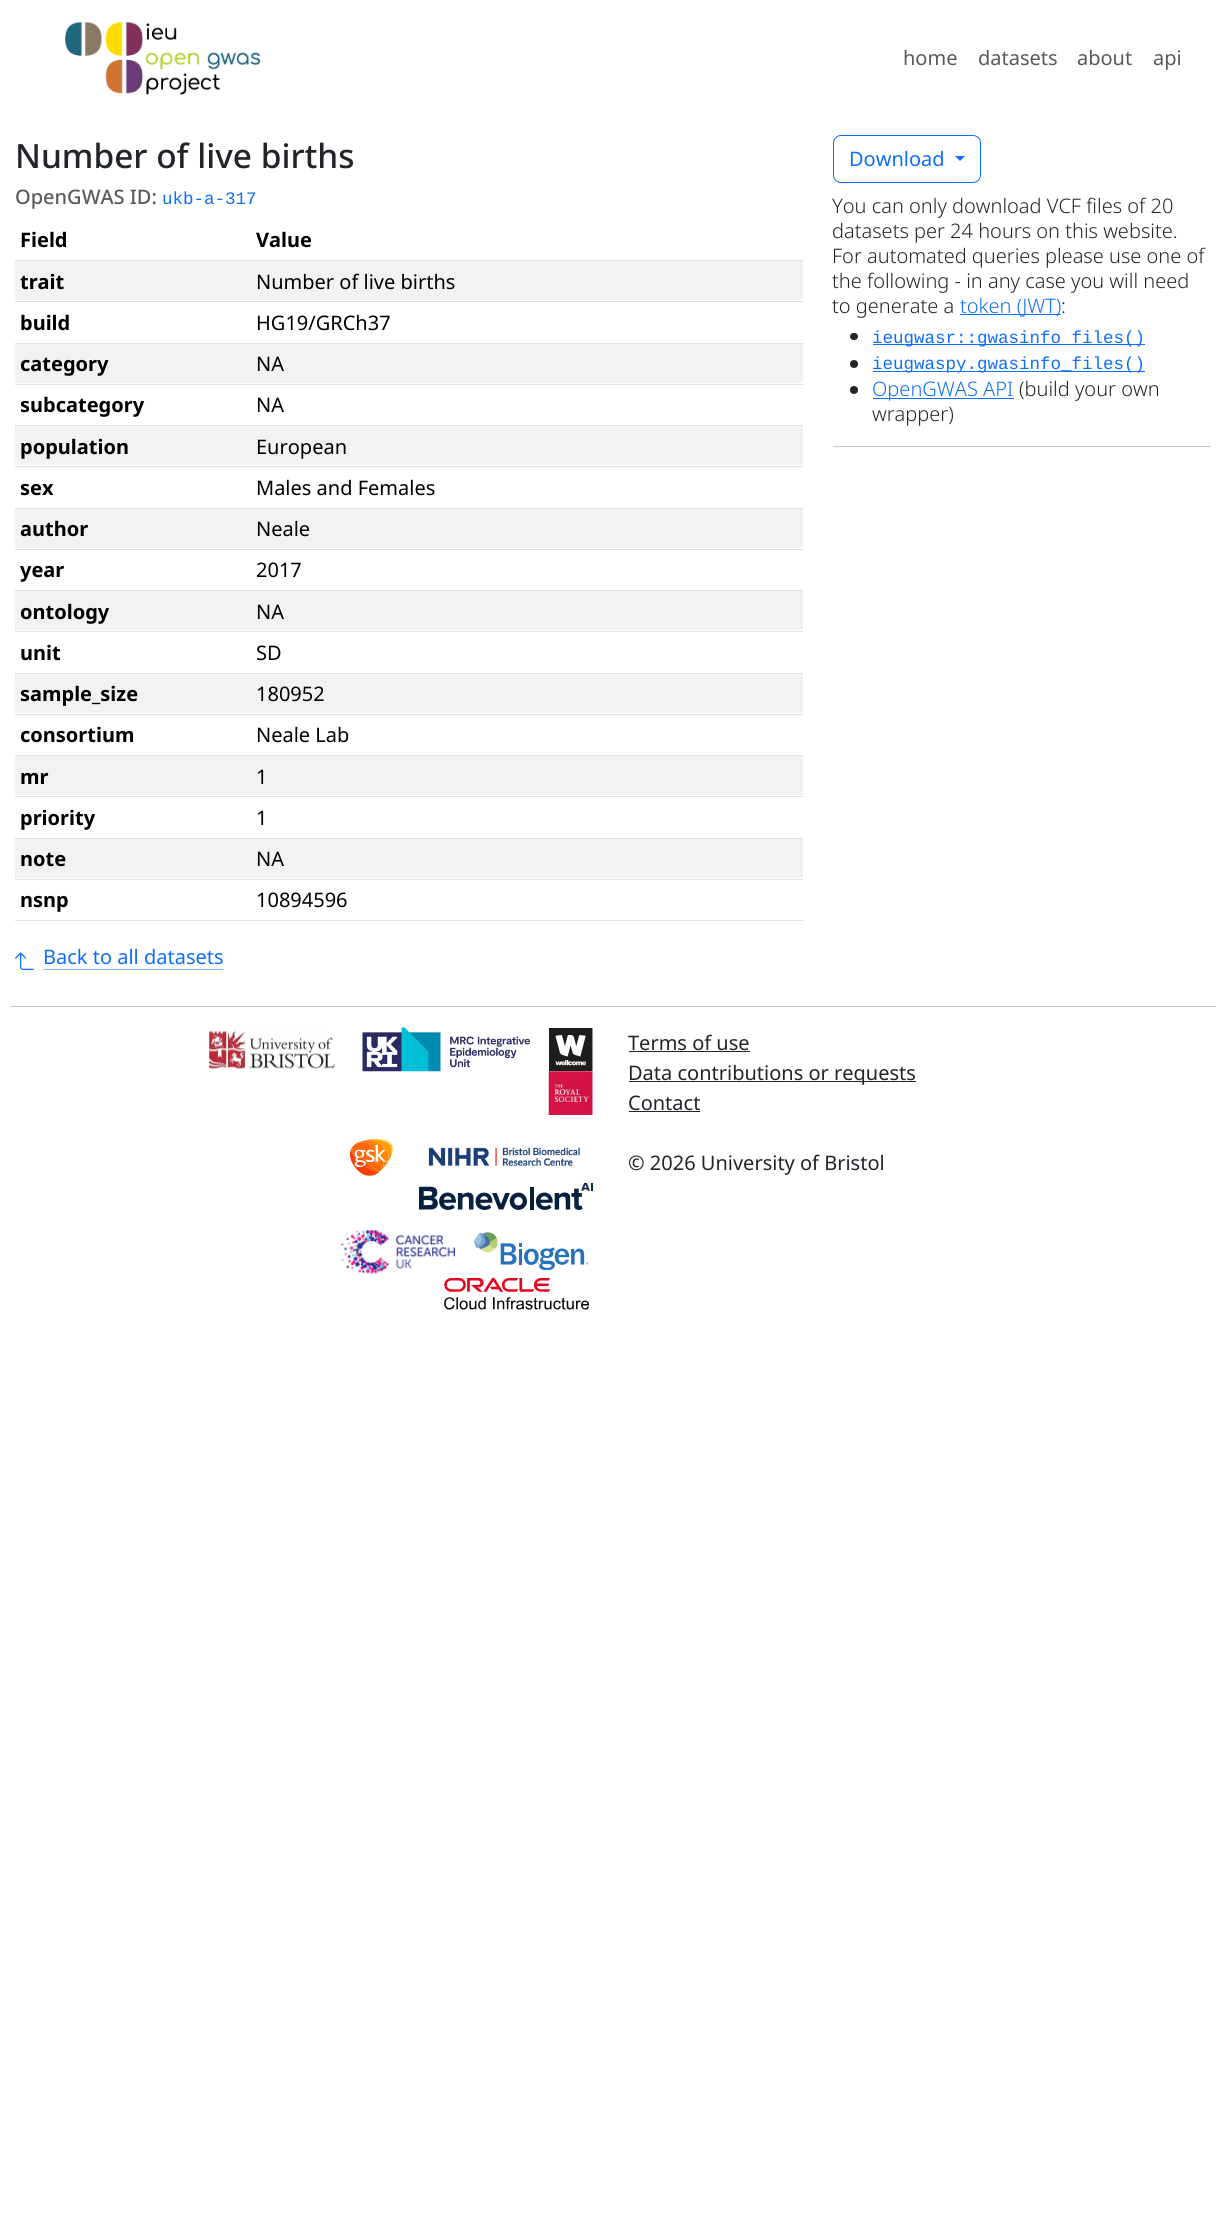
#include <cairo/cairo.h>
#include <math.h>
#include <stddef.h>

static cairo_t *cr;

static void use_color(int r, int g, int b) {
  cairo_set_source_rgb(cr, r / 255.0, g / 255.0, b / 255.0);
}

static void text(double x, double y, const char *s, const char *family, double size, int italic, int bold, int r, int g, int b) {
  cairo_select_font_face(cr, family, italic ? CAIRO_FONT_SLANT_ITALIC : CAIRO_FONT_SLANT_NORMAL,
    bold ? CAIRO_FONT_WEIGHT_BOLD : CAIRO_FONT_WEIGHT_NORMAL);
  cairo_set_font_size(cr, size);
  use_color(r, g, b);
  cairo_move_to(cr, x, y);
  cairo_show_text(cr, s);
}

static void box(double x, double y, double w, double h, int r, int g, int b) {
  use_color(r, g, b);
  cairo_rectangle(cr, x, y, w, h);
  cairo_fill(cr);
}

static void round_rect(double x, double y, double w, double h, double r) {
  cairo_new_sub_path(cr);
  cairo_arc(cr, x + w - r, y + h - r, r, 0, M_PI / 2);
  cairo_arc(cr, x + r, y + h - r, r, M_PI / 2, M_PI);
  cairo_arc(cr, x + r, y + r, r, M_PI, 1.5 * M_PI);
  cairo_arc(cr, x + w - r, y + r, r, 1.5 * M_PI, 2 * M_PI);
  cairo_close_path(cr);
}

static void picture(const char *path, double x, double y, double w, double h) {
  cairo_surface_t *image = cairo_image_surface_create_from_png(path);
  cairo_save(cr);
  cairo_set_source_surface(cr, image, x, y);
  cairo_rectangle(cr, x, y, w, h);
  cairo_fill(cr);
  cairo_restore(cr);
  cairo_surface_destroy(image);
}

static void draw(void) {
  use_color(255, 255, 255);
  cairo_paint(cr);
  picture("img_01.png", 65, 21, 195, 74);
  box(15, 260, 788, 1, 222, 226, 230);
  box(15, 261, 788, 39, 242, 242, 242);
  box(15, 301, 788, 1, 222, 226, 230);
  box(15, 343, 788, 1, 222, 226, 230);
  box(15, 344, 788, 39, 242, 242, 242);
  box(15, 384, 788, 1, 222, 226, 230);
  box(15, 425, 788, 1, 222, 226, 230);
  box(15, 426, 788, 39, 242, 242, 242);
  box(15, 466, 788, 1, 222, 226, 230);
  box(15, 508, 788, 1, 222, 226, 230);
  box(15, 509, 788, 39, 242, 242, 242);
  box(15, 549, 788, 1, 222, 226, 230);
  box(15, 590, 788, 1, 222, 226, 230);
  box(15, 591, 788, 39, 242, 242, 242);
  box(15, 631, 788, 1, 222, 226, 230);
  box(15, 673, 788, 1, 222, 226, 230);
  box(15, 674, 788, 39, 242, 242, 242);
  box(15, 714, 788, 1, 222, 226, 230);
  box(15, 755, 788, 1, 222, 226, 230);
  box(15, 756, 788, 39, 242, 242, 242);
  box(15, 796, 788, 1, 222, 226, 230);
  box(15, 838, 788, 1, 222, 226, 230);
  box(15, 839, 788, 39, 242, 242, 242);
  box(15, 879, 788, 1, 222, 226, 230);
  box(15, 920, 788, 1, 222, 226, 230);
  round_rect(833.5, 135.5, 147, 47, 7.5);
  use_color(13, 110, 253);
  cairo_set_line_width(cr, 1);
  cairo_stroke(cr);
  cairo_new_path(cr);
  cairo_move_to(cr, 955, 156);
  cairo_line_to(cr, 965, 156);
  cairo_line_to(cr, 960, 161);
  cairo_close_path(cr);
  cairo_fill(cr);
  box(960, 314, 101, 1, 13, 110, 253);
  use_color(33, 37, 41);
  round_rect(850, 333, 8, 7, 3.5);
  cairo_fill(cr);
  box(873, 344, 272, 1, 13, 110, 253);
  use_color(33, 37, 41);
  cairo_arc(cr, 854, 364, 4, 0, 2 * M_PI);
  cairo_fill(cr);
  box(873, 371, 272, 1, 13, 110, 253);
  use_color(33, 37, 41);
  cairo_arc(cr, 854, 390, 4, 0, 2 * M_PI);
  cairo_fill(cr);
  box(873, 398, 141, 1, 13, 110, 253);
  box(833, 446, 378, 1, 200, 201, 202);
  picture("img_02.png", 15, 952, 19, 18);
  box(43, 969, 180, 1, 134, 183, 254);
  box(10, 1006, 1206, 1, 200, 201, 202);
  picture("img_03.png", 207, 1030, 128, 40);
  picture("img_04.png", 362, 1027, 168, 45);
  picture("img_05.png", 549, 1028, 44, 43);
  picture("img_06.png", 548, 1071, 45, 44);
  picture("img_07.png", 349, 1139, 44, 37);
  picture("img_08.png", 428, 1147, 152, 19);
  picture("img_09.png", 419, 1183, 174, 27);
  picture("img_10.png", 341, 1230, 114, 44);
  picture("img_11.png", 473, 1232, 116, 39);
  picture("img_12.png", 444, 1277, 146, 33);
  box(629, 1051, 121, 1, 33, 37, 41);
  box(629, 1081, 287, 1, 33, 37, 41);
  box(629, 1111, 71, 1, 33, 37, 41);
  text(903, 65, "home", "Noto Sans", 20, 0, 0, 89, 89, 89);
  text(978, 65, "datasets", "Noto Sans", 20, 0, 0, 89, 89, 89);
  text(1077, 65, "about", "Noto Sans", 20, 0, 0, 89, 89, 89);
  text(1153, 65, "api", "Noto Sans", 20, 0, 0, 89, 89, 89);
  text(15, 168, "Number of live births", "Noto Sans Medium", 33.4, 0, 0, 33, 37, 41);
  text(15, 204, "OpenGWAS ID:", "Noto Sans Medium", 20, 0, 0, 89, 92, 95);
  text(162, 204, "ukb-a-317", "Liberation Mono", 17.5, 0, 0, 13, 110, 253);
  text(20, 247, "Field", "Noto Sans", 20, 0, 1, 0, 0, 0);
  text(256, 247, "Value", "Noto Sans", 20, 0, 1, 0, 0, 0);
  text(20, 289, "trait", "Noto Sans", 20, 0, 1, 0, 0, 0);
  text(256, 289, "Number of live births", "Noto Sans", 20, 0, 0, 0, 0, 0);
  text(20, 330, "build", "Noto Sans", 20, 0, 1, 0, 0, 0);
  text(256, 330, "HG19/GRCh37", "Noto Sans", 20, 0, 0, 0, 0, 0);
  text(20, 371, "category", "Noto Sans", 20, 0, 1, 0, 0, 0);
  text(256, 371, "NA", "Noto Sans", 20, 0, 0, 0, 0, 0);
  text(20, 412, "subcategory", "Noto Sans", 20, 0, 1, 0, 0, 0);
  text(256, 412, "NA", "Noto Sans", 20, 0, 0, 0, 0, 0);
  text(20, 454, "population", "Noto Sans", 20, 0, 1, 0, 0, 0);
  text(256, 454, "European", "Noto Sans", 20, 0, 0, 0, 0, 0);
  text(20, 495, "sex", "Noto Sans", 20, 0, 1, 0, 0, 0);
  text(256, 495, "Males and Females", "Noto Sans", 20, 0, 0, 0, 0, 0);
  text(20, 536, "author", "Noto Sans", 20, 0, 1, 0, 0, 0);
  text(256, 536, "Neale", "Noto Sans", 20, 0, 0, 0, 0, 0);
  text(20, 577, "year", "Noto Sans", 20, 0, 1, 0, 0, 0);
  text(256, 577, "2017", "Noto Sans", 20, 0, 0, 0, 0, 0);
  text(20, 619, "ontology", "Noto Sans", 20, 0, 1, 0, 0, 0);
  text(256, 619, "NA", "Noto Sans", 20, 0, 0, 0, 0, 0);
  text(20, 660, "unit", "Noto Sans", 20, 0, 1, 0, 0, 0);
  text(256, 660, "SD", "Noto Sans", 20, 0, 0, 0, 0, 0);
  text(20, 701, "sample_size", "Noto Sans", 20, 0, 1, 0, 0, 0);
  text(256, 701, "180952", "Noto Sans", 20, 0, 0, 0, 0, 0);
  text(20, 742, "consortium", "Noto Sans", 20, 0, 1, 0, 0, 0);
  text(256, 742, "Neale Lab", "Noto Sans", 20, 0, 0, 0, 0, 0);
  text(20, 784, "mr", "Noto Sans", 20, 0, 1, 0, 0, 0);
  text(256, 784, "1", "Noto Sans", 20, 0, 0, 0, 0, 0);
  text(20, 825, "priority", "Noto Sans", 20, 0, 1, 0, 0, 0);
  text(256, 825, "1", "Noto Sans", 20, 0, 0, 0, 0, 0);
  text(20, 866, "note", "Noto Sans", 20, 0, 1, 0, 0, 0);
  text(256, 866, "NA", "Noto Sans", 20, 0, 0, 0, 0, 0);
  text(20, 907, "nsnp", "Noto Sans", 20, 0, 1, 0, 0, 0);
  text(256, 907, "10894596", "Noto Sans", 20, 0, 0, 0, 0, 0);
  text(849, 166, "Download", "Noto Sans", 20, 0, 0, 13, 110, 253);
  text(832, 213, "You can only download VCF files of 20", "Noto Sans Light", 20, 0, 0, 33, 37, 41);
  text(832, 238, "datasets per 24 hours on this website.", "Noto Sans Light", 20, 0, 0, 33, 37, 41);
  text(832, 263, "For automated queries please use one of", "Noto Sans Light", 20, 0, 0, 33, 37, 41);
  text(832, 288, "the following - in any case you will need", "Noto Sans Light", 20, 0, 0, 33, 37, 41);
  text(832, 313, "to generate a", "Noto Sans Light", 20, 0, 0, 33, 37, 41);
  text(960, 313, "token (JWT)", "Noto Sans Light", 20, 0, 0, 13, 110, 253);
  text(1061, 313, ":", "Noto Sans Light", 20, 0, 0, 33, 37, 41);
  text(872, 343, "ieugwasr::gwasinfo_files()", "Liberation Mono", 17.5, 0, 0, 13, 110, 253);
  text(872, 369, "ieugwaspy.gwasinfo_files()", "Liberation Mono", 17.5, 0, 0, 13, 110, 253);
  text(872, 396, "OpenGWAS API", "Noto Sans Light", 20, 0, 0, 13, 110, 253);
  text(1019, 396, "(build your own", "Noto Sans Light", 20, 0, 0, 33, 37, 41);
  text(872, 421, "wrapper)", "Noto Sans Light", 20, 0, 0, 33, 37, 41);
  text(43, 964, "Back to all datasets", "Noto Sans", 20, 0, 0, 13, 110, 253);
  text(628, 1050, "Terms of use", "Noto Sans", 20, 0, 0, 33, 37, 41);
  text(628, 1080, "Data contributions or requests", "Noto Sans", 20, 0, 0, 33, 37, 41);
  text(628, 1110, "Contact", "Noto Sans", 20, 0, 0, 33, 37, 41);
  text(628, 1170, "© 2026 University of Bristol", "Noto Sans", 20, 0, 0, 33, 37, 41);
}

int main(void) {
  cairo_surface_t *surface = cairo_image_surface_create(CAIRO_FORMAT_RGB24, 1226, 2239);
  cr = cairo_create(surface);
  cairo_font_options_t *options = cairo_font_options_create();
  cairo_font_options_set_hint_metrics(options, CAIRO_HINT_METRICS_OFF);
  cairo_font_options_set_hint_style(options, CAIRO_HINT_STYLE_NONE);
  cairo_set_font_options(cr, options);
  cairo_set_miter_limit(cr, 4);
  draw();
  cairo_surface_write_to_png(surface, "out.png");
  cairo_font_options_destroy(options);
  cairo_destroy(cr);
  cairo_surface_destroy(surface);
  return 0;
}
